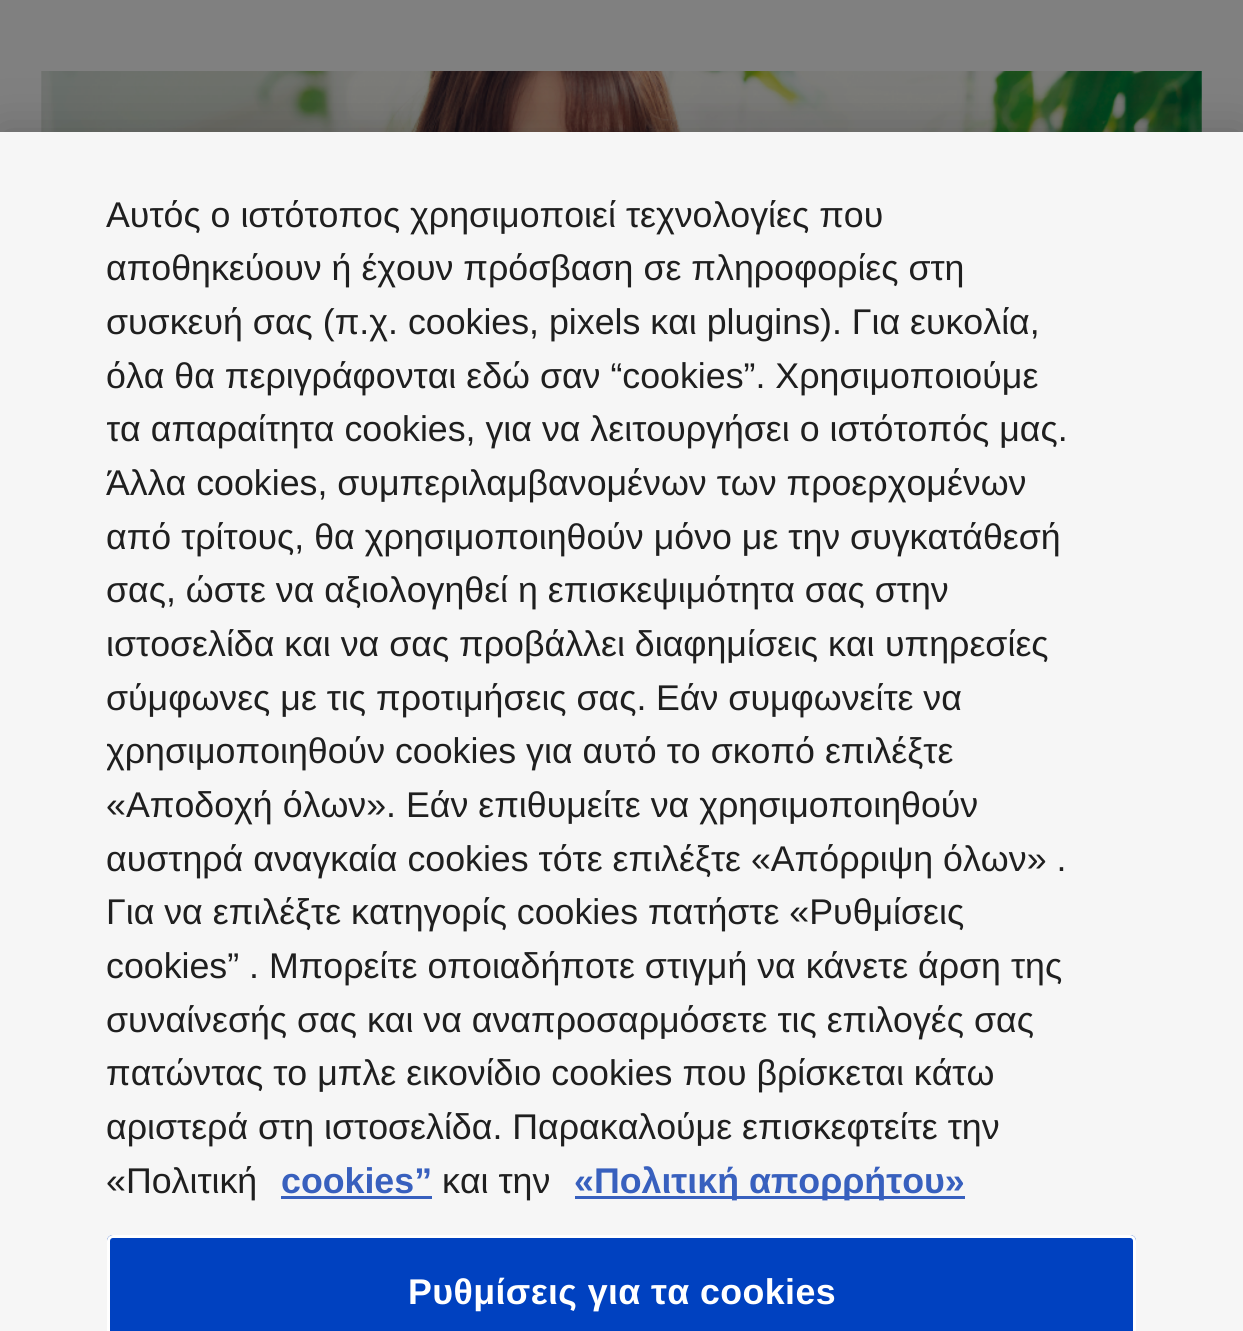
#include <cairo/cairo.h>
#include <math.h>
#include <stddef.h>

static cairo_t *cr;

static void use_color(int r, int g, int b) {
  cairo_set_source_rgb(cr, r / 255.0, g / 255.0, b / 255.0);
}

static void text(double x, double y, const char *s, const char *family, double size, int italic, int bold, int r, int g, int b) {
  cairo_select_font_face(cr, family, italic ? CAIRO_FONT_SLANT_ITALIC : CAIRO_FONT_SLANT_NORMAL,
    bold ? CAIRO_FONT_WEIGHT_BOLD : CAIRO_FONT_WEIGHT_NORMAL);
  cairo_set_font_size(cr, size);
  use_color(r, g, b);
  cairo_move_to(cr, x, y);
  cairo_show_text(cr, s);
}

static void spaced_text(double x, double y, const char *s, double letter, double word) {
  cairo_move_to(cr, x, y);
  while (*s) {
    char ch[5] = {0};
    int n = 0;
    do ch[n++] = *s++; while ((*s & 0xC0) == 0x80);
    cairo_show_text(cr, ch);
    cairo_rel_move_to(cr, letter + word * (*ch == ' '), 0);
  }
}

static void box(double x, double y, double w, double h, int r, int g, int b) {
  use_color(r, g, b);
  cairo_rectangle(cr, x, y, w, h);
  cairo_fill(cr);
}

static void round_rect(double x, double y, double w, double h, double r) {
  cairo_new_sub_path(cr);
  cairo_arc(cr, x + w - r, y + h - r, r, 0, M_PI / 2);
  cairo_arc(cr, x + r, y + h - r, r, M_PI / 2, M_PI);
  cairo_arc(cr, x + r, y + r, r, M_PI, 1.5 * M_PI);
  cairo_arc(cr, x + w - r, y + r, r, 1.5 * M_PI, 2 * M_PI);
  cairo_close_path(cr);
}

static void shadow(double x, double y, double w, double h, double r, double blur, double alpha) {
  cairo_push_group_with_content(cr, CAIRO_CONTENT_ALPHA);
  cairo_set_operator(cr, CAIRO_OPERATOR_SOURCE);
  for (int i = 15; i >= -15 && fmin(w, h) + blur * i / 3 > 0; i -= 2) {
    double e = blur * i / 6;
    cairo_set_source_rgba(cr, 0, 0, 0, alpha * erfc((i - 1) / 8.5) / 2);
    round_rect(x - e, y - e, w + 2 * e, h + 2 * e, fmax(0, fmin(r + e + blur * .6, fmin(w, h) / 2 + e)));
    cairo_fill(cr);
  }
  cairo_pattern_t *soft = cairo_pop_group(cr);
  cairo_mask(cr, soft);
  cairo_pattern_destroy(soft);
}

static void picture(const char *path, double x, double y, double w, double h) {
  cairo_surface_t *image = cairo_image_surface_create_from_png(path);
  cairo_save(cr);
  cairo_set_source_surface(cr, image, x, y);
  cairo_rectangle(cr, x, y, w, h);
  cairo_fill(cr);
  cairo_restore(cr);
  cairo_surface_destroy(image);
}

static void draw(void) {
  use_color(128, 128, 128);
  cairo_paint(cr);
  picture("img_01.png", 41, 71, 1161, 61);
  use_color(0, 0, 0);
  shadow(0, 132, 1243, 1199, 0, 25, 0.2);
  box(0, 132, 1243, 1199, 246, 246, 246);
  box(281, 1196, 151, 3, 56, 96, 190);
  box(575, 1196, 390, 3, 56, 96, 190);
  use_color(0, 65, 192);
  cairo_new_path(cr);
  cairo_move_to(cr, 113, 1235);
  cairo_line_to(cr, 1130, 1235);
  cairo_curve_to(cr, 1133.5, 1235, 1136, 1237.5, 1136, 1241);
  cairo_line_to(cr, 1136, 1331);
  cairo_line_to(cr, 107, 1331);
  cairo_line_to(cr, 107, 1241);
  cairo_curve_to(cr, 107, 1237.5, 109.5, 1235, 113, 1235);
  cairo_close_path(cr);
  cairo_fill(cr);
  round_rect(108.5, 1236.5, 1026, 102, 4.5);
  use_color(255, 255, 255);
  cairo_set_line_width(cr, 3);
  cairo_stroke(cr);
  text(106, 227, "Αυτός ο ιστότοπος χρησιμοποιεί τεχνολογίες που", "Liberation Sans", 35.75, 0, 0, 31, 31, 31);
  text(106, 280, "αποθηκεύουν ή έχουν πρόσβαση σε πληροφορίες στη", "Liberation Sans", 35.75, 0, 0, 31, 31, 31);
  text(106, 334, "συσκευή σας (π.χ. cookies, pixels και plugins). Για ευκολία,", "Liberation Sans", 35.75, 0, 0, 31, 31, 31);
  text(106, 388, "όλα θα περιγράφονται εδώ σαν “cookies”. Χρησιμοποιούμε", "Liberation Sans", 35.75, 0, 0, 31, 31, 31);
  cairo_save(cr);
  cairo_rectangle(cr, 107, 187, 974, 1020);
  cairo_clip(cr);
  text(106, 441, "τα απαραίτητα cookies, για να λειτουργήσει ο ιστότοπός μας.", "Liberation Sans", 35.75, 0, 0, 31, 31, 31);
  cairo_restore(cr);
  text(106, 495, "Άλλα cookies, συμπεριλαμβανομένων των προερχομένων", "Liberation Sans", 35.75, 0, 0, 31, 31, 31);
  text(106, 549, "από τρίτους, θα χρησιμοποιηθούν μόνο με την συγκατάθεσή", "Liberation Sans", 35.75, 0, 0, 31, 31, 31);
  text(106, 602, "σας, ώστε να αξιολογηθεί η επισκεψιμότητα σας στην", "Liberation Sans", 35.75, 0, 0, 31, 31, 31);
  text(106, 656, "ιστοσελίδα και να σας προβάλλει διαφημίσεις και", "Liberation Sans", 35.75, 0, 0, 31, 31, 31);
  text(885, 656, "υπηρεσίες", "Liberation Sans", 35.75, 0, 0, 31, 31, 31);
  text(106, 710, "σύμφωνες με τις προτιμήσεις σας.", "Liberation Sans", 35.75, 0, 0, 31, 31, 31);
  text(656, 710, "Εάν συμφωνείτε να", "Liberation Sans", 35.75, 0, 0, 31, 31, 31);
  cairo_save(cr);
  cairo_rectangle(cr, 107, 187, 974, 1020);
  cairo_clip(cr);
  text(106, 763, "χρησιμοποιηθούν cookies για αυτό το σκοπό επιλέξτε", "Liberation Sans", 35.75, 0, 0, 31, 31, 31);
  cairo_restore(cr);
  text(106, 817, "«Αποδοχή όλων». Εάν επιθυμείτε να χρησιμοποιηθούν", "Liberation Sans", 35.75, 0, 0, 31, 31, 31);
  text(106, 871, "αυστηρά αναγκαία cookies τότε επιλέξτε «Απόρριψη όλων» .", "Liberation Sans", 35.75, 0, 0, 31, 31, 31);
  text(106, 924, "Για να επιλέξτε κατηγορίς cookies πατήστε «Ρυθμίσεις", "Liberation Sans", 35.75, 0, 0, 31, 31, 31);
  text(106, 978, "cookies” . Μπορείτε οποιαδήποτε στιγμή να κάνετε άρση της", "Liberation Sans", 35.75, 0, 0, 31, 31, 31);
  text(106, 1032, "συναίνεσής σας και να αναπροσαρμόσετε τις επιλογές σας", "Liberation Sans", 35.75, 0, 0, 31, 31, 31);
  text(106, 1085, "πατώντας το μπλε εικονίδιο cookies που βρίσκεται κάτω", "Liberation Sans", 35.75, 0, 0, 31, 31, 31);
  text(106, 1139, "αριστερά στη ιστοσελίδα. Παρακαλούμε επισκεφτείτε την", "Liberation Sans", 35.75, 0, 0, 31, 31, 31);
  text(106, 1193, "«Πολιτική", "Liberation Sans", 35.75, 0, 0, 31, 31, 31);
  text(281, 1193, "cookies”", "Liberation Sans", 35.75, 0, 1, 56, 96, 190);
  text(442, 1193, "και την", "Liberation Sans", 35.75, 0, 0, 31, 31, 31);
  text(574, 1193, "«Πολιτική απορρήτου»", "Liberation Sans", 35.75, 0, 1, 56, 96, 190);
  use_color(255, 255, 255);
  spaced_text(408, 1304, "Ρυθμίσεις για τα cookies", 0.4, 0);
}

int main(void) {
  cairo_surface_t *surface = cairo_image_surface_create(CAIRO_FORMAT_RGB24, 1243, 1331);
  cr = cairo_create(surface);
  cairo_font_options_t *options = cairo_font_options_create();
  cairo_font_options_set_hint_metrics(options, CAIRO_HINT_METRICS_OFF);
  cairo_font_options_set_hint_style(options, CAIRO_HINT_STYLE_NONE);
  cairo_set_font_options(cr, options);
  cairo_set_miter_limit(cr, 4);
  draw();
  cairo_surface_write_to_png(surface, "out.png");
  cairo_font_options_destroy(options);
  cairo_destroy(cr);
  cairo_surface_destroy(surface);
  return 0;
}
